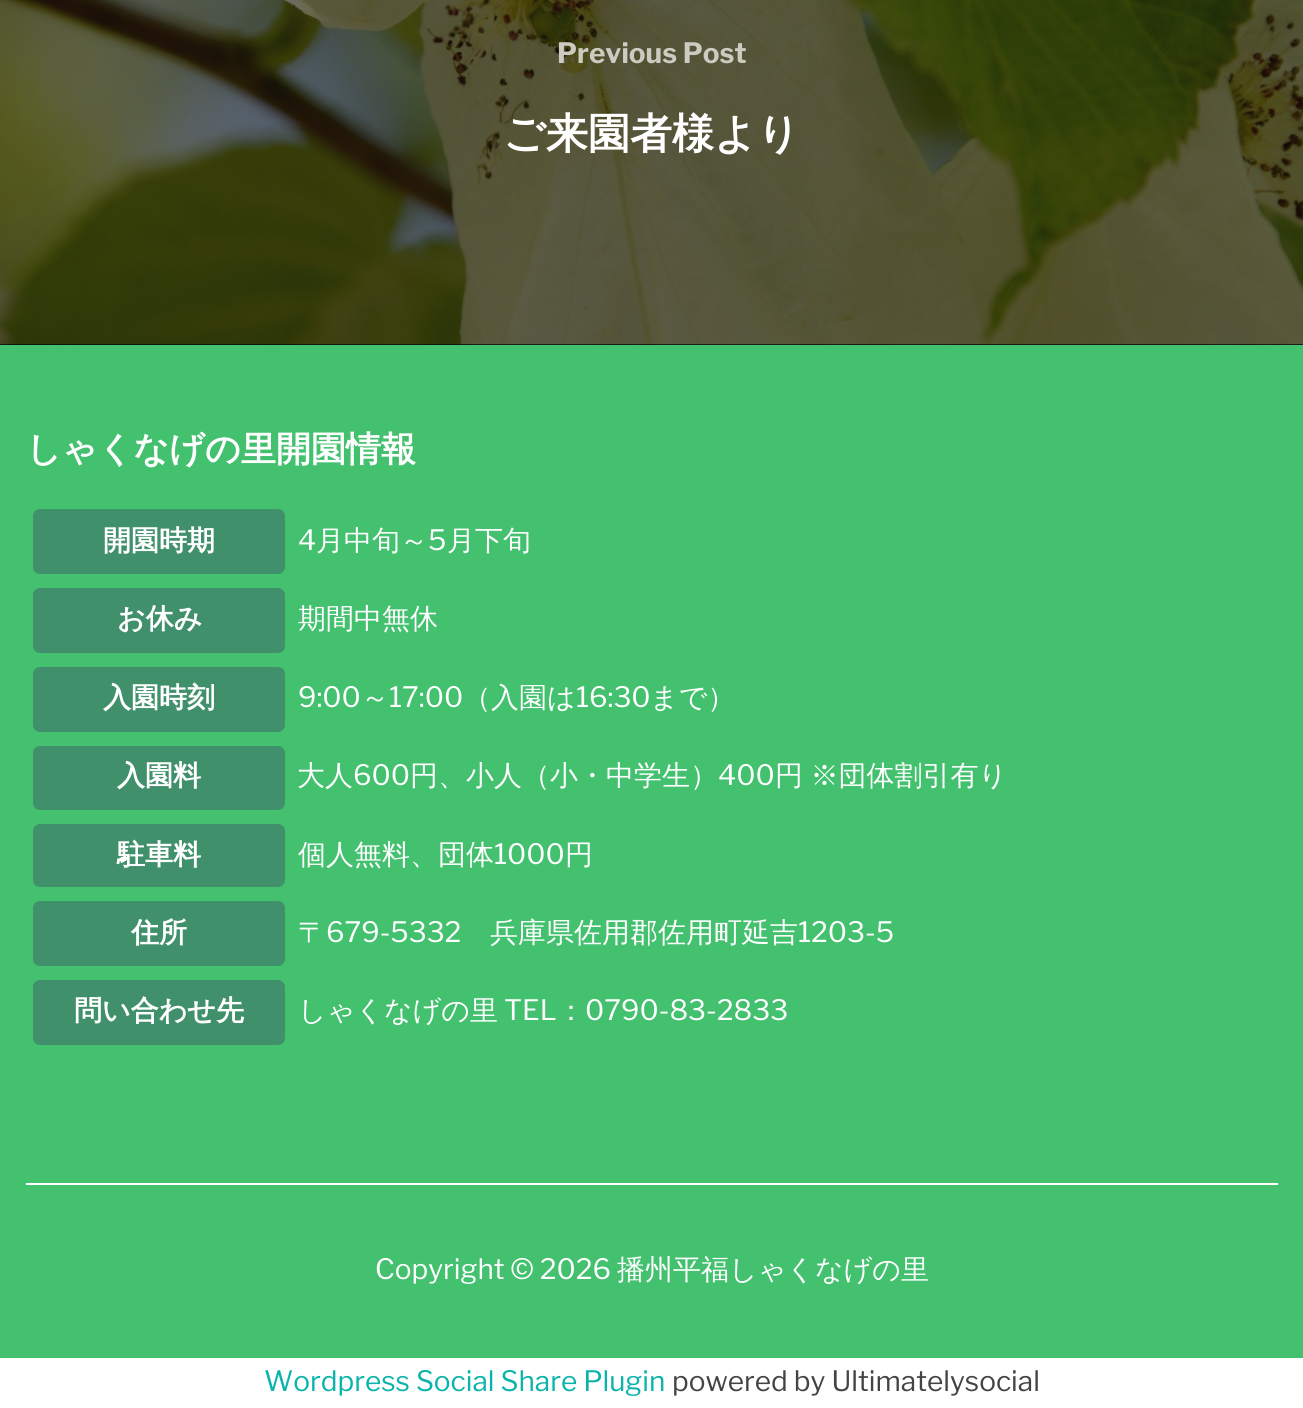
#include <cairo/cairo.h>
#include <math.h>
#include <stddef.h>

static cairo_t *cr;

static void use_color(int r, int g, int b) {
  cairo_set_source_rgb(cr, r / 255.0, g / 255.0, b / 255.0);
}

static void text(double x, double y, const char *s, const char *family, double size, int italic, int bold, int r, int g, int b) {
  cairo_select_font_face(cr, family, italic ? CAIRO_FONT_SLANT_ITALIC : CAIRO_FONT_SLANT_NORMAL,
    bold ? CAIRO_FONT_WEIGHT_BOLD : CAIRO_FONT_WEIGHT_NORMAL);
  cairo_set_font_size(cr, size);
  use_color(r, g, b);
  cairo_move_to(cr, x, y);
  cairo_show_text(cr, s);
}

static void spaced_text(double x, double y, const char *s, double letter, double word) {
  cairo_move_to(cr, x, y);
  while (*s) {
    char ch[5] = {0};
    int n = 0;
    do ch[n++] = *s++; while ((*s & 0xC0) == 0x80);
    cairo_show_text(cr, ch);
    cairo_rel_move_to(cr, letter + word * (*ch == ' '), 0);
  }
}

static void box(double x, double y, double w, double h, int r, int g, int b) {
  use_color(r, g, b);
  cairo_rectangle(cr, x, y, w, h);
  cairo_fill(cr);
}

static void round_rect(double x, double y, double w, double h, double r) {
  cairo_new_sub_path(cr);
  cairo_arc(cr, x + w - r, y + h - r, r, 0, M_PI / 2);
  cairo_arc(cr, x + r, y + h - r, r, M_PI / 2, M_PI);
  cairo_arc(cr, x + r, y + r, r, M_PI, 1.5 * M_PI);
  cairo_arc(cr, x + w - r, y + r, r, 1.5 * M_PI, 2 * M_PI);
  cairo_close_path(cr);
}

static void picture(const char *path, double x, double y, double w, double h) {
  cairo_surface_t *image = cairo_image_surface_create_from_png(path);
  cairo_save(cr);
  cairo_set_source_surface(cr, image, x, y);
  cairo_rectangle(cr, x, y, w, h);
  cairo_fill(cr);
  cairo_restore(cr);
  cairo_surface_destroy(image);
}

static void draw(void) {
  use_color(255, 255, 255);
  cairo_paint(cr);
  box(0, 0, 1303, 345, 9, 10, 10);
  picture("img_01.png", 0, 0, 1303, 345);
  box(0, 345, 1303, 1013, 67, 193, 111);
  use_color(64, 144, 107);
  round_rect(33, 509, 252, 65, 7);
  cairo_fill(cr);
  round_rect(33, 588, 252, 65, 7);
  cairo_fill(cr);
  round_rect(33, 667, 252, 65, 7);
  cairo_fill(cr);
  round_rect(33, 746, 252, 64, 7);
  cairo_fill(cr);
  round_rect(33, 824, 252, 63, 7);
  cairo_fill(cr);
  round_rect(33, 901, 252, 65, 7);
  cairo_fill(cr);
  round_rect(33, 980, 252, 65, 7);
  cairo_fill(cr);
  box(26, 1183, 1252, 2, 255, 255, 255);
  text(557, 63, "Previous Post", "Libre Franklin", 28, 0, 1, 203, 203, 193);
  text(503, 148, "ご来園者様より", "WenQuanYi Zen Hei", 42, 0, 1, 255, 255, 255);
  text(26, 461, "しゃくなげの里開園情報", "WenQuanYi Zen Hei", 35, 0, 1, 255, 255, 255);
  text(103, 550, "開園時期", "WenQuanYi Zen Hei", 28, 0, 1, 255, 255, 255);
  text(298, 550, "4", "Libre Franklin", 28, 0, 0, 255, 255, 255);
  text(316, 550, "月中旬～", "WenQuanYi Zen Hei Medium", 28, 0, 0, 255, 255, 255);
  text(428, 550, "5", "Libre Franklin", 28, 0, 0, 255, 255, 255);
  text(447, 550, "月下旬", "WenQuanYi Zen Hei Medium", 28, 0, 0, 255, 255, 255);
  text(117, 628, "お休み", "WenQuanYi Zen Hei", 28, 0, 1, 255, 255, 255);
  text(298, 628, "期間中無休", "WenQuanYi Zen Hei Medium", 28, 0, 0, 255, 255, 255);
  text(103, 707, "入園時刻", "WenQuanYi Zen Hei", 28, 0, 1, 255, 255, 255);
  text(298, 707, "9:00", "Libre Franklin", 28, 0, 0, 255, 255, 255);
  text(361, 707, "～", "WenQuanYi Zen Hei Medium", 28, 0, 0, 255, 255, 255);
  text(389, 707, "17:00", "Libre Franklin", 28, 0, 0, 255, 255, 255);
  text(463, 707, "（入園は", "WenQuanYi Zen Hei Medium", 28, 0, 0, 255, 255, 255);
  text(576, 707, "16:30", "Libre Franklin", 28, 0, 0, 255, 255, 255);
  text(650, 707, "まで）", "WenQuanYi Zen Hei Medium", 28, 0, 0, 255, 255, 255);
  text(117, 785, "入園料", "WenQuanYi Zen Hei", 28, 0, 1, 255, 255, 255);
  text(297, 785, "大人", "WenQuanYi Zen Hei Medium", 28, 0, 0, 255, 255, 255);
  text(353, 785, "600", "Libre Franklin", 28, 0, 0, 255, 255, 255);
  text(410, 785, "円、小人（小・中学生）", "WenQuanYi Zen Hei Medium", 28, 0, 0, 255, 255, 255);
  text(718, 785, "400", "Libre Franklin", 28, 0, 0, 255, 255, 255);
  cairo_select_font_face(cr, "WenQuanYi Zen Hei Medium", CAIRO_FONT_SLANT_NORMAL, CAIRO_FONT_WEIGHT_NORMAL);
  spaced_text(775, 785, "円 ※団体割引有り", 0, -1);
  text(117, 864, "駐車料", "WenQuanYi Zen Hei", 28, 0, 1, 255, 255, 255);
  text(298, 864, "個人無料、団体", "WenQuanYi Zen Hei Medium", 28, 0, 0, 255, 255, 255);
  text(494, 864, "1000", "Libre Franklin", 28, 0, 0, 255, 255, 255);
  text(565, 864, "円", "WenQuanYi Zen Hei Medium", 28, 0, 0, 255, 255, 255);
  text(131, 942, "住所", "WenQuanYi Zen Hei", 28, 0, 1, 255, 255, 255);
  text(298, 942, "〒", "WenQuanYi Zen Hei Medium", 28, 0, 0, 255, 255, 255);
  text(326, 942, "679-5332", "Libre Franklin", 28, 0, 0, 255, 255, 255);
  text(490, 942, "兵庫県佐用郡佐用町延吉", "WenQuanYi Zen Hei Medium", 28, 0, 0, 255, 255, 255);
  text(798, 942, "1203-5", "Libre Franklin", 28, 0, 0, 255, 255, 255);
  text(74, 1020, "問い合わせ先", "WenQuanYi Zen Hei", 28, 0, 1, 255, 255, 255);
  text(298, 1020, "しゃくなげの里", "WenQuanYi Zen Hei Medium", 28, 0, 0, 255, 255, 255);
  text(504, 1020, "TEL", "Libre Franklin", 28, 0, 0, 255, 255, 255);
  text(557, 1020, "：", "WenQuanYi Zen Hei Medium", 28, 0, 0, 255, 255, 255);
  text(585, 1020, "0790-83-2833", "Libre Franklin", 28, 0, 0, 255, 255, 255);
  text(375, 1279, "Copyright © 2026", "Libre Franklin", 28, 0, 0, 255, 255, 255);
  text(617, 1279, "播州平福しゃくなげの里", "WenQuanYi Zen Hei Medium", 28, 0, 0, 255, 255, 255);
  text(264, 1391, "Wordpress Social Share Plugin", "Libre Franklin", 28, 0, 0, 11, 180, 170);
  text(672, 1391, "powered by Ultimatelysocial", "Libre Franklin", 28, 0, 0, 68, 68, 68);
}

int main(void) {
  cairo_surface_t *surface = cairo_image_surface_create(CAIRO_FORMAT_RGB24, 1303, 1408);
  cr = cairo_create(surface);
  cairo_font_options_t *options = cairo_font_options_create();
  cairo_font_options_set_hint_metrics(options, CAIRO_HINT_METRICS_OFF);
  cairo_font_options_set_hint_style(options, CAIRO_HINT_STYLE_NONE);
  cairo_set_font_options(cr, options);
  cairo_set_miter_limit(cr, 4);
  draw();
  cairo_surface_write_to_png(surface, "out.png");
  cairo_font_options_destroy(options);
  cairo_destroy(cr);
  cairo_surface_destroy(surface);
  return 0;
}
